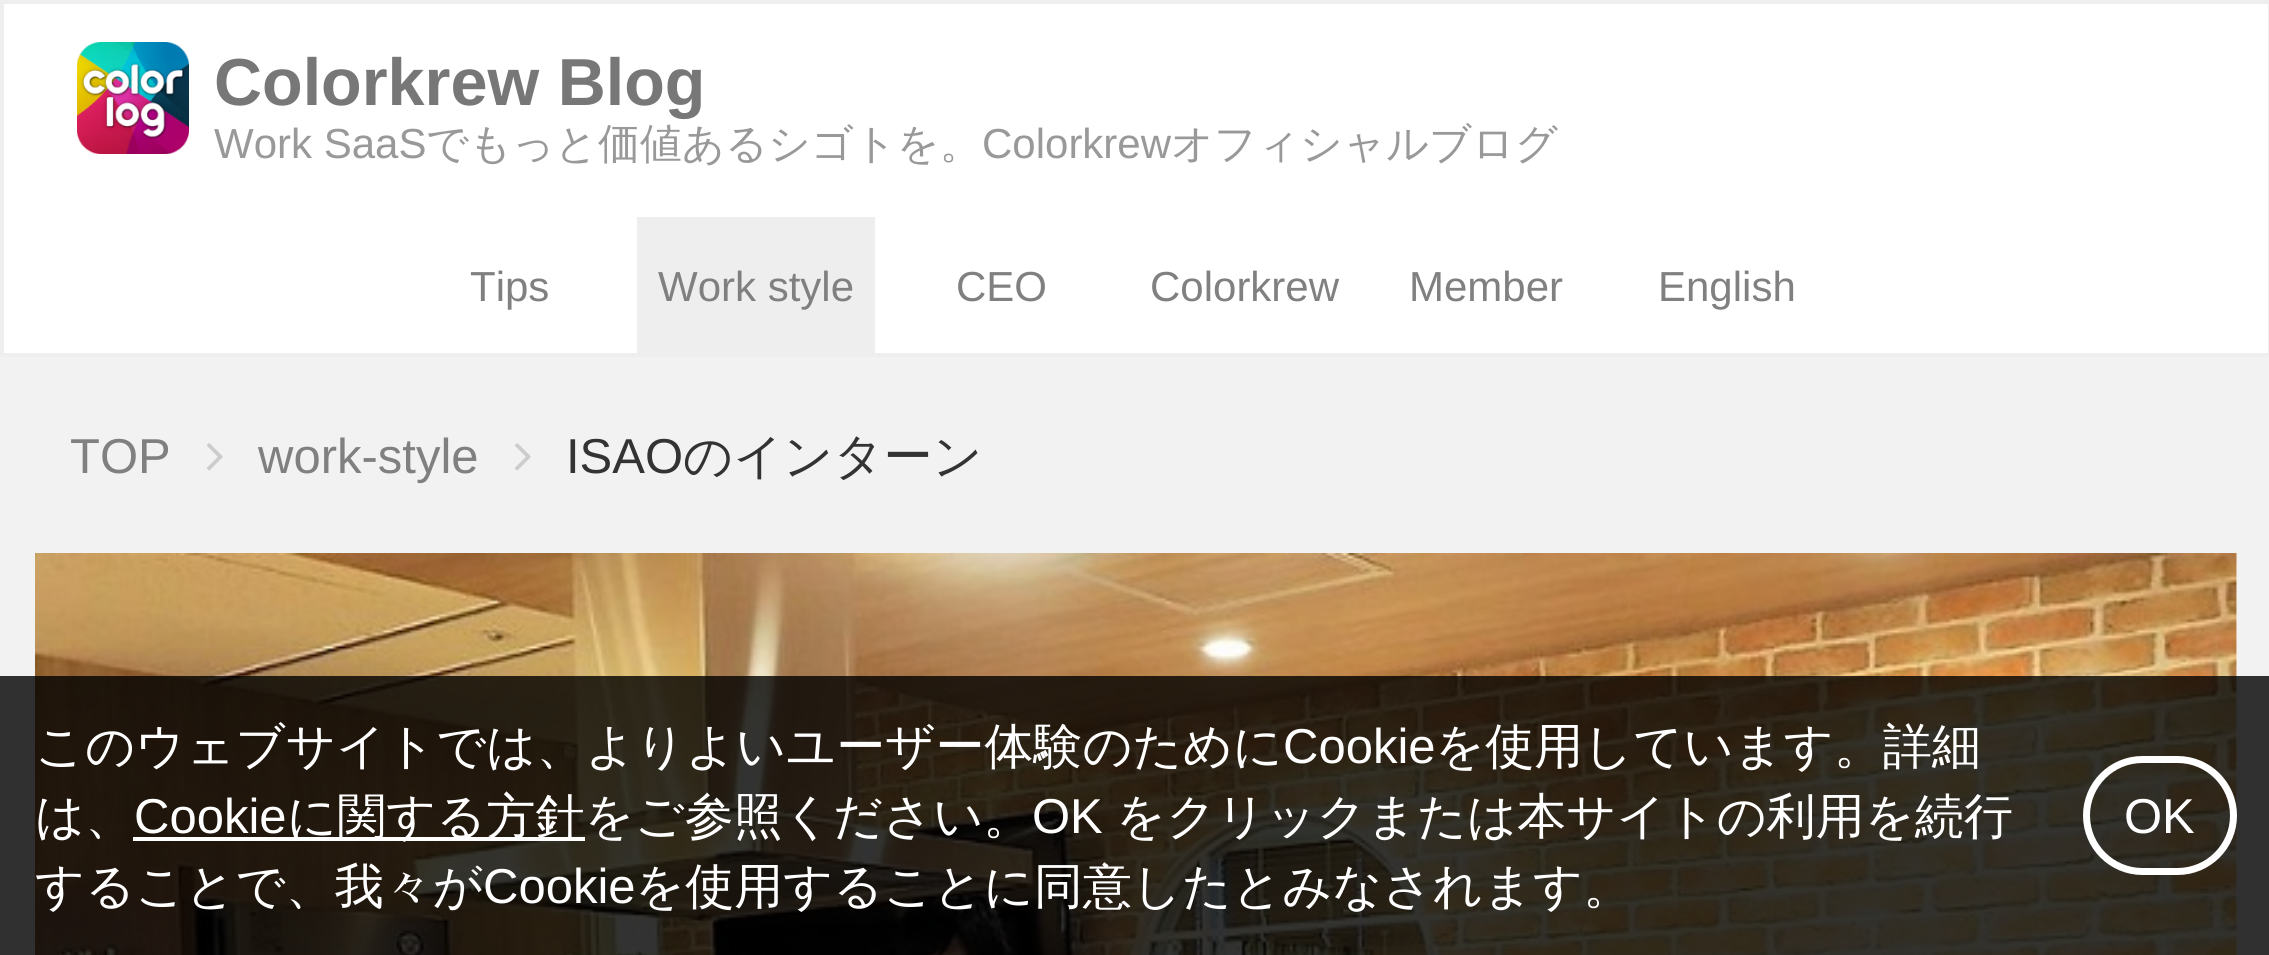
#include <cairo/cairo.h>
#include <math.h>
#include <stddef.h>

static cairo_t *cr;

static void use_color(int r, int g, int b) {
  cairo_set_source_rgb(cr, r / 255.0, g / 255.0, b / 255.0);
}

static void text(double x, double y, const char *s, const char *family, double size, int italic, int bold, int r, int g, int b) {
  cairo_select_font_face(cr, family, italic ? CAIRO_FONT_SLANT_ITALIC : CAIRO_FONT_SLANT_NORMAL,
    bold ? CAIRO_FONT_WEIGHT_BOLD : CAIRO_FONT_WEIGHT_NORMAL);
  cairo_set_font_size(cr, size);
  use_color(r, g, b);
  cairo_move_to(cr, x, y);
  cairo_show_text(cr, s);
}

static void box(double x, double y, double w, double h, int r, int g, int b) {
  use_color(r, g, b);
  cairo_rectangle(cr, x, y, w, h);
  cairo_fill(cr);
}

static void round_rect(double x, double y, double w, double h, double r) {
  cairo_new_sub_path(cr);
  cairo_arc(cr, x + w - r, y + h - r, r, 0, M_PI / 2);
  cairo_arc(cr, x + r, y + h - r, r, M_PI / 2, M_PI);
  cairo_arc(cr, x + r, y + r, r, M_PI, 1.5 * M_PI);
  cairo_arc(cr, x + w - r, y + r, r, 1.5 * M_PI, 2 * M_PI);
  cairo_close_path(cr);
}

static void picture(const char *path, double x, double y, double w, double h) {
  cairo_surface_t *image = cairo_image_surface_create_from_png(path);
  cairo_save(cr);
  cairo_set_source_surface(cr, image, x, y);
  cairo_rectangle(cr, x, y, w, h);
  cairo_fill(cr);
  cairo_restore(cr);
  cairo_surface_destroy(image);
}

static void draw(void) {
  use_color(242, 242, 242);
  cairo_paint(cr);
  use_color(255, 255, 255);
  cairo_rectangle(cr, 2, 2, 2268, 353);
  cairo_fill_preserve(cr);
  use_color(238, 238, 238);
  cairo_set_line_width(cr, 4);
  cairo_stroke(cr);
  picture("img_01.png", 77, 42, 112, 112);
  box(637, 217, 238, 136, 238, 238, 238);
  picture("img_02.png", 207, 443, 16, 28);
  picture("img_02.png", 515, 443, 16, 28);
  use_color(255, 255, 255);
  round_rect(35, 553, 2202, 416, 14);
  cairo_fill(cr);
  picture("img_03.png", 35, 553, 2202, 402);
  cairo_set_source_rgba(cr, 0, 0, 0, 0.8);
  cairo_rectangle(cr, 0, 676, 2269, 279);
  cairo_fill(cr);
  box(133, 837, 452, 4, 255, 255, 255);
  round_rect(2086.5, 759.5, 147, 112, 56);
  cairo_set_line_width(cr, 7);
  cairo_stroke(cr);
  text(214, 105, "Colorkrew Blog", "Liberation Sans", 66.5, 0, 1, 119, 119, 119);
  text(214, 158, "Work SaaS", "Liberation Sans", 42, 0, 0, 153, 153, 153);
  text(426, 158, "でもっと価値あるシゴトを。", "WenQuanYi Zen Hei Medium", 42, 0, 0, 153, 153, 153);
  text(982, 158, "Colorkrew", "Liberation Sans", 42, 0, 0, 153, 153, 153);
  text(1171, 158, "オフィシャルブログ", "WenQuanYi Zen Hei Medium", 42, 0, 0, 153, 153, 153);
  text(470, 301, "Tips", "Liberation Sans", 42, 0, 0, 128, 128, 128);
  text(658, 301, "Work style", "Liberation Sans", 42, 0, 0, 128, 128, 128);
  text(956, 301, "CEO", "Liberation Sans", 42, 0, 0, 128, 128, 128);
  text(1150, 301, "Colorkrew", "Liberation Sans", 42, 0, 0, 128, 128, 128);
  text(1409, 301, "Member", "Liberation Sans", 42, 0, 0, 128, 128, 128);
  text(1658, 301, "English", "Liberation Sans", 42, 0, 0, 128, 128, 128);
  text(70, 473, "TOP", "Liberation Sans", 49, 0, 0, 128, 128, 128);
  text(258, 473, "work-style", "Liberation Sans", 49, 0, 0, 128, 128, 128);
  text(566, 473, "ISAO", "Liberation Sans", 49, 0, 0, 51, 51, 51);
  text(683, 473, "のインターン", "WenQuanYi Zen Hei Medium", 49, 0, 0, 51, 51, 51);
  text(35, 763, "このウェブサイトでは、よりよいユーザー体験のために", "WenQuanYi Zen Hei Medium", 49, 0, 0, 255, 255, 255);
  text(1283, 763, "Cookie", "Liberation Sans", 49, 0, 0, 255, 255, 255);
  text(1435, 763, "を使用しています。詳細", "WenQuanYi Zen Hei Medium", 49, 0, 0, 255, 255, 255);
  text(35, 833, "は、", "WenQuanYi Zen Hei Medium", 49, 0, 0, 255, 255, 255);
  text(134, 833, "Cookie", "Liberation Sans", 49, 0, 0, 255, 255, 255);
  text(287, 833, "に関する方針をご参照ください。", "WenQuanYi Zen Hei Medium", 49, 0, 0, 255, 255, 255);
  text(1032, 833, "OK", "Liberation Sans", 49, 0, 0, 255, 255, 255);
  text(1116, 833, "をクリックまたは本サイトの利用を続行", "WenQuanYi Zen Hei Medium", 49, 0, 0, 255, 255, 255);
  text(35, 903, "することで、我々が", "WenQuanYi Zen Hei Medium", 49, 0, 0, 255, 255, 255);
  text(483, 903, "Cookie", "Liberation Sans", 49, 0, 0, 255, 255, 255);
  text(635, 903, "を使用することに同意したとみなされます。", "WenQuanYi Zen Hei Medium", 49, 0, 0, 255, 255, 255);
  text(2124, 833, "OK", "Liberation Sans", 49, 0, 0, 255, 255, 255);
}

int main(void) {
  cairo_surface_t *surface = cairo_image_surface_create(CAIRO_FORMAT_RGB24, 2269, 955);
  cr = cairo_create(surface);
  cairo_font_options_t *options = cairo_font_options_create();
  cairo_font_options_set_hint_metrics(options, CAIRO_HINT_METRICS_OFF);
  cairo_font_options_set_hint_style(options, CAIRO_HINT_STYLE_NONE);
  cairo_set_font_options(cr, options);
  cairo_set_miter_limit(cr, 4);
  draw();
  cairo_surface_write_to_png(surface, "out.png");
  cairo_font_options_destroy(options);
  cairo_destroy(cr);
  cairo_surface_destroy(surface);
  return 0;
}
